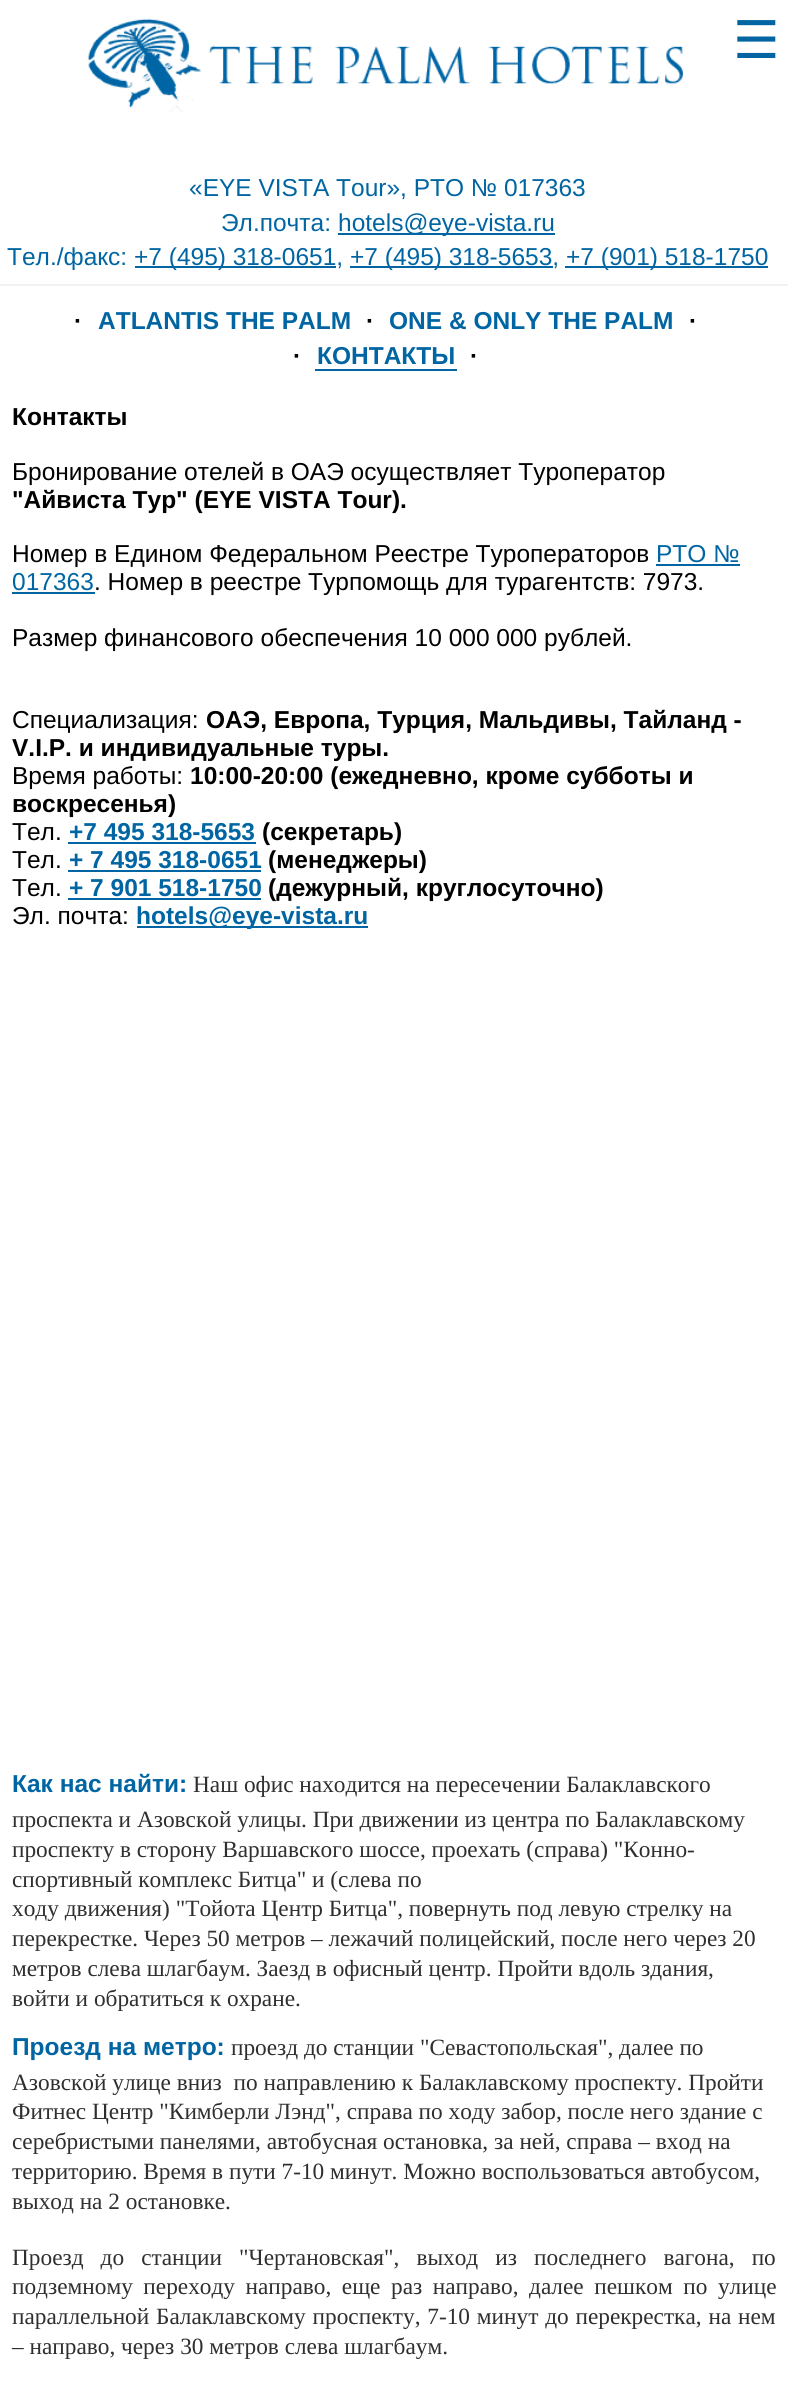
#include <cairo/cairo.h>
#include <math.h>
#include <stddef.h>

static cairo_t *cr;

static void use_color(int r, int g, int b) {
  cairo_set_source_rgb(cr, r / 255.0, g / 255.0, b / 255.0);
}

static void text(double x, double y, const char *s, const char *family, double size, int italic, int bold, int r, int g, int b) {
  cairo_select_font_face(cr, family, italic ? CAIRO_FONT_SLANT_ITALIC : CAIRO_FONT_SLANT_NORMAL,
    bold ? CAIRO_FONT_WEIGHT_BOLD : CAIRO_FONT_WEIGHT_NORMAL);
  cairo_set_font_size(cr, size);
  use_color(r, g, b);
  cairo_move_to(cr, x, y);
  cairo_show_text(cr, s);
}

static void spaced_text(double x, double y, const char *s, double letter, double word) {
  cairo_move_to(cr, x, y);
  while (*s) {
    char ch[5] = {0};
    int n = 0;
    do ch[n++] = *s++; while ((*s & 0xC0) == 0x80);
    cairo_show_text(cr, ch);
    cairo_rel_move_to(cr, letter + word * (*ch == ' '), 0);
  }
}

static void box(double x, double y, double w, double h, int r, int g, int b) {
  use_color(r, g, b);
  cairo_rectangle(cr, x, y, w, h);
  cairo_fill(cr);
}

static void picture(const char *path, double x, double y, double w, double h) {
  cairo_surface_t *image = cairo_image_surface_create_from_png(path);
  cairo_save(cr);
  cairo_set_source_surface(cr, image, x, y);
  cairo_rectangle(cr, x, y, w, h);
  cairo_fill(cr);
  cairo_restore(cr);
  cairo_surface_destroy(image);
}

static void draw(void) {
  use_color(255, 255, 255);
  cairo_paint(cr);
  picture("img_01.png", 87, 18, 596, 95);
  box(338, 233, 217, 2, 0, 101, 162);
  box(135, 266, 201, 2, 0, 101, 162);
  box(350, 266, 203, 2, 0, 101, 162);
  box(565, 266, 203, 2, 0, 101, 162);
  box(0, 284, 788, 2, 242, 242, 242);
  box(315, 369, 142, 2, 0, 101, 162);
  box(656, 564, 84, 2, 0, 101, 162);
  box(12, 592, 83, 2, 0, 101, 162);
  box(68, 842, 188, 2, 0, 101, 162);
  box(68, 870, 193, 2, 0, 101, 162);
  box(68, 898, 193, 2, 0, 101, 162);
  box(137, 926, 231, 2, 0, 101, 162);
  text(733, 58, "☰", "DejaVu Sans", 52, 0, 0, 0, 101, 162);
  text(189, 196, "«EYE VISTA Tour», РТО № 017363", "Liberation Sans", 24.5, 0, 0, 0, 101, 162);
  text(221, 231, "Эл.почта:", "Liberation Sans", 24.5, 0, 0, 0, 101, 162);
  text(338, 231, "hotels@eye-vista.ru", "Liberation Sans", 24.5, 0, 0, 0, 101, 162);
  text(7, 265, "Тел./факс:", "Liberation Sans", 24.5, 0, 0, 0, 101, 162);
  text(134, 265, "+7 (495) 318-0651,", "Liberation Sans", 24.5, 0, 0, 0, 101, 162);
  text(350, 265, "+7 (495) 318-5653,", "Liberation Sans", 24.5, 0, 0, 0, 101, 162);
  text(566, 265, "+7 (901) 518-1750", "Liberation Sans", 24.5, 0, 0, 0, 101, 162);
  text(74, 329, "·", "Liberation Sans", 24.5, 0, 1, 0, 0, 0);
  text(98, 329, "ATLANTIS THE PALM", "Liberation Sans", 24.5, 0, 1, 0, 101, 162);
  text(366, 329, "·", "Liberation Sans", 24.5, 0, 1, 0, 0, 0);
  text(389, 329, "ONE & ONLY THE PALM", "Liberation Sans", 24.5, 0, 1, 0, 101, 162);
  text(689, 329, "·", "Liberation Sans", 24.5, 0, 1, 0, 0, 0);
  text(293, 364, "·", "Liberation Sans", 24.5, 0, 1, 0, 0, 0);
  text(317, 364, "КОНТАКТЫ", "Liberation Sans", 24.5, 0, 1, 0, 101, 162);
  text(470, 364, "·", "Liberation Sans", 24.5, 0, 1, 0, 0, 0);
  text(12, 425, "Контакты", "Liberation Sans", 24.5, 0, 1, 0, 0, 0);
  text(12, 480, "Бронирование отелей в ОАЭ осуществляет Туроператор", "Liberation Sans", 24.5, 0, 0, 0, 0, 0);
  text(12, 508, "\"Айвиста Тур\" (EYE VISTA Tour).", "Liberation Sans", 24.5, 0, 1, 0, 0, 0);
  text(12, 562, "Номер в Едином Федеральном Реестре Туроператоров", "Liberation Sans", 24.5, 0, 0, 0, 0, 0);
  text(656, 562, "РТО №", "Liberation Sans", 24.5, 0, 0, 0, 101, 162);
  text(12, 590, "017363", "Liberation Sans", 24.5, 0, 0, 0, 101, 162);
  text(94, 590, ". Номер в реестре Турпомощь для турагентств: 7973.", "Liberation Sans", 24.5, 0, 0, 0, 0, 0);
  text(12, 646, "Размер финансового обеспечения 10 000 000 рублей.", "Liberation Sans", 24.5, 0, 0, 0, 0, 0);
  text(12, 728, "Специализация:", "Liberation Sans", 24.5, 0, 0, 0, 0, 0);
  text(206, 728, "ОАЭ, Европа, Турция, Мальдивы, Тайланд -", "Liberation Sans", 24.5, 0, 1, 0, 0, 0);
  text(12, 756, "V.I.P. и индивидуальные туры.", "Liberation Sans", 24.5, 0, 1, 0, 0, 0);
  text(12, 784, "Время работы:", "Liberation Sans", 24.5, 0, 0, 0, 0, 0);
  text(190, 784, "10:00-20:00 (ежедневно, кроме субботы и", "Liberation Sans", 24.5, 0, 1, 0, 0, 0);
  text(12, 812, "воскресенья)", "Liberation Sans", 24.5, 0, 1, 0, 0, 0);
  text(12, 840, "Тел.", "Liberation Sans", 24.5, 0, 0, 0, 0, 0);
  text(69, 840, "+7 495 318-5653", "Liberation Sans", 24.5, 0, 1, 0, 101, 162);
  text(262, 840, "(секретарь)", "Liberation Sans", 24.5, 0, 1, 0, 0, 0);
  text(12, 868, "Тел.", "Liberation Sans", 24.5, 0, 0, 0, 0, 0);
  text(69, 868, "+ 7 495 318-0651", "Liberation Sans", 24.5, 0, 1, 0, 101, 162);
  text(268, 868, "(менеджеры)", "Liberation Sans", 24.5, 0, 1, 0, 0, 0);
  text(12, 896, "Тел.", "Liberation Sans", 24.5, 0, 0, 0, 0, 0);
  text(69, 896, "+ 7 901 518-1750", "Liberation Sans", 24.5, 0, 1, 0, 101, 162);
  text(268, 896, "(дежурный, круглосуточно)", "Liberation Sans", 24.5, 0, 1, 0, 0, 0);
  text(12, 924, "Эл. почта:", "Liberation Sans", 24.5, 0, 0, 0, 0, 0);
  text(136, 924, "hotels@eye-vista.ru", "Liberation Sans", 24.5, 0, 1, 0, 101, 162);
  text(12, 1792, "Как нас найти:", "Liberation Sans", 24.5, 0, 1, 0, 101, 162);
  text(193, 1792, "Наш офис находится на пересечении Балаклавского", "Liberation Serif", 23.3, 0, 0, 47, 47, 47);
  text(12, 1827, "проспекта и Азовской улицы. При движении из центра по Балаклавскому", "Liberation Serif", 23.3, 0, 0, 47, 47, 47);
  text(12, 1857, "проспекту в сторону Варшавского шоссе, проехать (справа) \"Конно-", "Liberation Serif", 23.3, 0, 0, 47, 47, 47);
  text(12, 1887, "спортивный комплекс Битца\" и (слева по", "Liberation Serif", 23.3, 0, 0, 47, 47, 47);
  text(12, 1916, "ходу движения) \"Тойота Центр Битца\", повернуть под левую стрелку на", "Liberation Serif", 23.3, 0, 0, 47, 47, 47);
  text(12, 1946, "перекрестке. Через 50 метров – лежачий полицейский, после него через 20", "Liberation Serif", 23.3, 0, 0, 47, 47, 47);
  text(12, 1976, "метров слева шлагбаум. Заезд в офисный центр. Пройти вдоль здания,", "Liberation Serif", 23.3, 0, 0, 47, 47, 47);
  text(12, 2006, "войти и обратиться к охране.", "Liberation Serif", 23.3, 0, 0, 47, 47, 47);
  text(12, 2055, "Проезд на метро:", "Liberation Sans", 24.5, 0, 1, 0, 101, 162);
  text(231, 2055, "проезд до станции \"Севастопольская\", далее по", "Liberation Serif", 23.3, 0, 0, 47, 47, 47);
  text(12, 2090, "Азовской улице вниз  по направлению к Балаклавскому проспекту. Пройти", "Liberation Serif", 23.3, 0, 0, 47, 47, 47);
  text(12, 2119, "Фитнес Центр \"Кимберли Лэнд\", справа по ходу забор, после него здание с", "Liberation Serif", 23.3, 0, 0, 47, 47, 47);
  text(12, 2149, "серебристыми панелями, автобусная остановка, за ней, справа – вход на", "Liberation Serif", 23.3, 0, 0, 47, 47, 47);
  text(12, 2179, "территорию. Время в пути 7-10 минут. Можно воспользоваться автобусом,", "Liberation Serif", 23.3, 0, 0, 47, 47, 47);
  text(12, 2209, "выход на 2 остановке.", "Liberation Serif", 23.3, 0, 0, 47, 47, 47);
  spaced_text(12, 2265, "Проезд до станции \"Чертановская\", выход из последнего вагона, по", 0, 11.25);
  spaced_text(12, 2294, "подземному переходу направо, еще раз направо, далее пешком по улице", 0, 4.75);
  spaced_text(12, 2324, "параллельной Балаклавскому проспекту, 7-10 минут до перекрестка, на нем", 0, 1);
  text(12, 2354, "– направо, через 30 метров слева шлагбаум.", "Liberation Serif", 23.3, 0, 0, 47, 47, 47);
}

int main(void) {
  cairo_surface_t *surface = cairo_image_surface_create(CAIRO_FORMAT_RGB24, 788, 2381);
  cr = cairo_create(surface);
  cairo_font_options_t *options = cairo_font_options_create();
  cairo_font_options_set_hint_metrics(options, CAIRO_HINT_METRICS_OFF);
  cairo_font_options_set_hint_style(options, CAIRO_HINT_STYLE_NONE);
  cairo_set_font_options(cr, options);
  cairo_set_miter_limit(cr, 4);
  draw();
  cairo_surface_write_to_png(surface, "out.png");
  cairo_font_options_destroy(options);
  cairo_destroy(cr);
  cairo_surface_destroy(surface);
  return 0;
}
